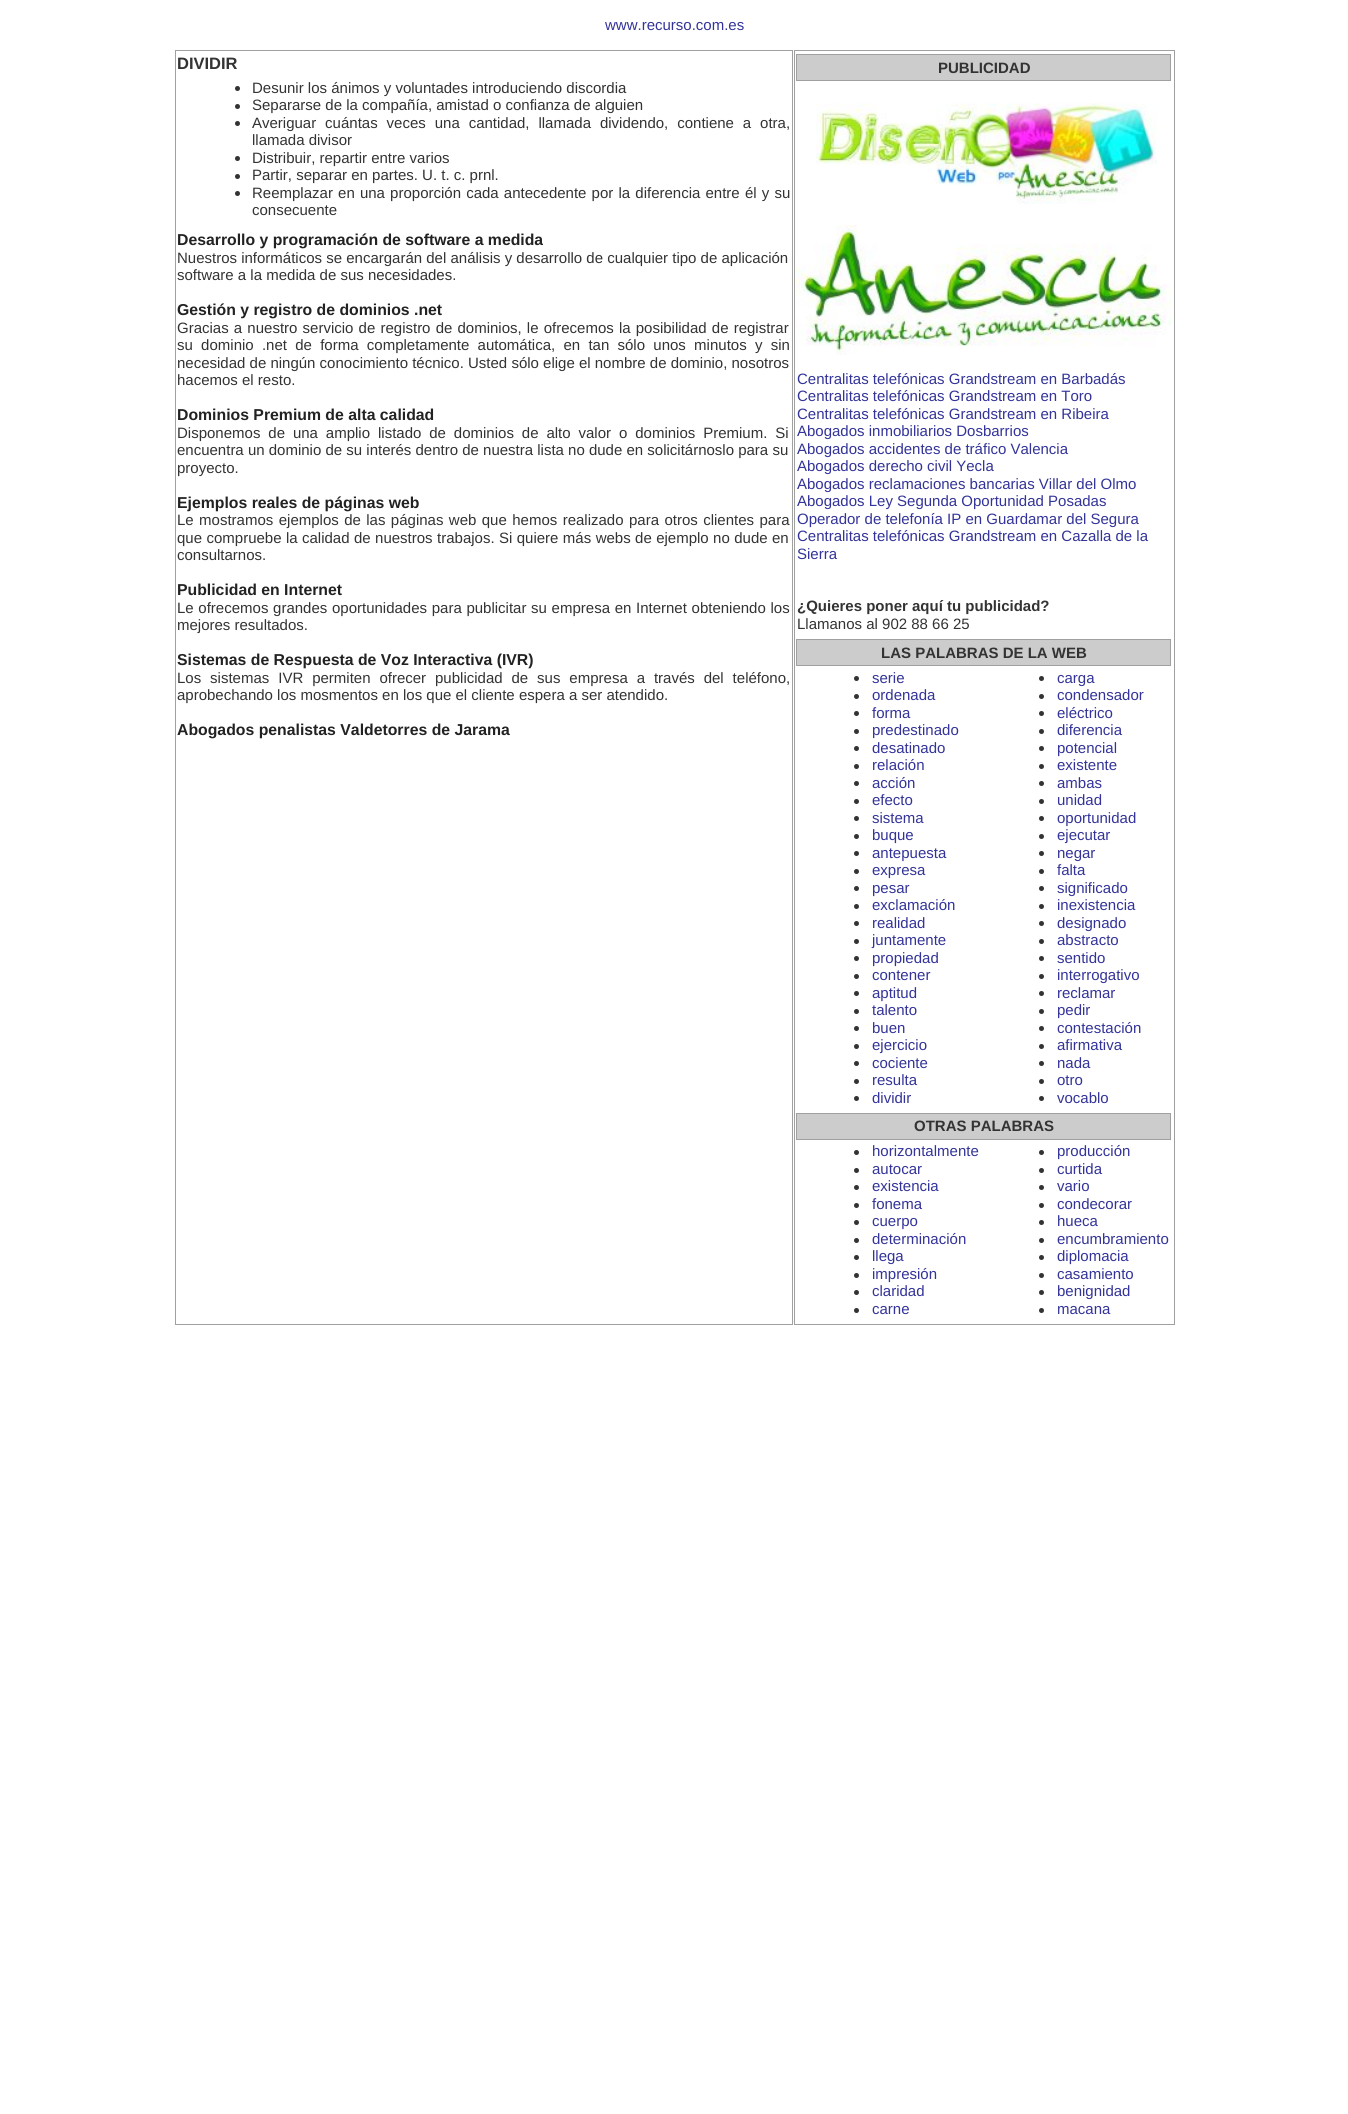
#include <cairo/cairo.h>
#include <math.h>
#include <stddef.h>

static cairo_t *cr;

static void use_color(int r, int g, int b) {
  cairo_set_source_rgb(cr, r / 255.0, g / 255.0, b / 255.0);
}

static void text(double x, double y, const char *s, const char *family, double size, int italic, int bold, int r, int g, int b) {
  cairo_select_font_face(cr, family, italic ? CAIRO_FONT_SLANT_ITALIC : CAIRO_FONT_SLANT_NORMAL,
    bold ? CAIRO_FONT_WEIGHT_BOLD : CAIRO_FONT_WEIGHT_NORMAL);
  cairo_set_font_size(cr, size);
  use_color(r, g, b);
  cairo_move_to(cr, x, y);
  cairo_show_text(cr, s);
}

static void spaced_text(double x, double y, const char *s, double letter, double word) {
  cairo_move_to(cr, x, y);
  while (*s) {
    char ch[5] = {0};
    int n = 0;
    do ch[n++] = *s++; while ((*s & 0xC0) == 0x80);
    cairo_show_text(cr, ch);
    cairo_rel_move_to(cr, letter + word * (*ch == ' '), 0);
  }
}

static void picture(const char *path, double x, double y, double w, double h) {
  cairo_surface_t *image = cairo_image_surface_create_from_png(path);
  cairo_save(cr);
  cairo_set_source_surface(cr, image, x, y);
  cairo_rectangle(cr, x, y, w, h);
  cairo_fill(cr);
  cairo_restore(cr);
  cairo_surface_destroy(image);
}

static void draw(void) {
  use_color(255, 255, 255);
  cairo_paint(cr);
  cairo_rectangle(cr, 175.5, 50.5, 617, 1274);
  use_color(160, 160, 160);
  cairo_set_line_width(cr, 1);
  cairo_stroke(cr);
  use_color(51, 51, 51);
  cairo_arc(cr, 237.5, 88.5, 2.5, 0, 2 * M_PI);
  cairo_fill(cr);
  cairo_arc(cr, 237.5, 106.5, 2.5, 0, 2 * M_PI);
  cairo_fill(cr);
  cairo_arc(cr, 237.5, 123.5, 2.5, 0, 2 * M_PI);
  cairo_fill(cr);
  cairo_arc(cr, 237.5, 158.5, 2.5, 0, 2 * M_PI);
  cairo_fill(cr);
  cairo_arc(cr, 237.5, 176.5, 2.5, 0, 2 * M_PI);
  cairo_fill(cr);
  cairo_arc(cr, 237.5, 193.5, 2.5, 0, 2 * M_PI);
  cairo_fill(cr);
  cairo_rectangle(cr, 794.5, 50.5, 380, 1274);
  use_color(160, 160, 160);
  cairo_stroke(cr);
  use_color(204, 204, 204);
  cairo_rectangle(cr, 796.5, 54.5, 374, 26);
  cairo_fill_preserve(cr);
  use_color(160, 160, 160);
  cairo_stroke(cr);
  picture("img_01.png", 816, 103, 341, 101);
  picture("img_02.png", 796, 225, 375, 130);
  use_color(204, 204, 204);
  cairo_rectangle(cr, 796.5, 639.5, 374, 26);
  cairo_fill_preserve(cr);
  use_color(160, 160, 160);
  cairo_stroke(cr);
  use_color(51, 51, 51);
  cairo_arc(cr, 856.5, 678.5, 2.5, 0, 2 * M_PI);
  cairo_fill(cr);
  cairo_arc(cr, 856.5, 696.5, 2.5, 0, 2 * M_PI);
  cairo_fill(cr);
  cairo_arc(cr, 856.5, 713.5, 2.5, 0, 2 * M_PI);
  cairo_fill(cr);
  cairo_arc(cr, 856.5, 731.5, 2.5, 0, 2 * M_PI);
  cairo_fill(cr);
  cairo_arc(cr, 856.5, 748.5, 2.5, 0, 2 * M_PI);
  cairo_fill(cr);
  cairo_arc(cr, 856.5, 766.5, 2.5, 0, 2 * M_PI);
  cairo_fill(cr);
  cairo_arc(cr, 856.5, 783.5, 2.5, 0, 2 * M_PI);
  cairo_fill(cr);
  cairo_arc(cr, 856.5, 801.5, 2.5, 0, 2 * M_PI);
  cairo_fill(cr);
  cairo_arc(cr, 856.5, 818.5, 2.5, 0, 2 * M_PI);
  cairo_fill(cr);
  cairo_arc(cr, 856.5, 836.5, 2.5, 0, 2 * M_PI);
  cairo_fill(cr);
  cairo_arc(cr, 856.5, 853.5, 2.5, 0, 2 * M_PI);
  cairo_fill(cr);
  cairo_arc(cr, 856.5, 871.5, 2.5, 0, 2 * M_PI);
  cairo_fill(cr);
  cairo_arc(cr, 856.5, 888.5, 2.5, 0, 2 * M_PI);
  cairo_fill(cr);
  cairo_arc(cr, 856.5, 906.5, 2.5, 0, 2 * M_PI);
  cairo_fill(cr);
  cairo_arc(cr, 856.5, 923.5, 2.5, 0, 2 * M_PI);
  cairo_fill(cr);
  cairo_arc(cr, 856.5, 941.5, 2.5, 0, 2 * M_PI);
  cairo_fill(cr);
  cairo_arc(cr, 856.5, 958.5, 2.5, 0, 2 * M_PI);
  cairo_fill(cr);
  cairo_arc(cr, 856.5, 976.5, 2.5, 0, 2 * M_PI);
  cairo_fill(cr);
  cairo_arc(cr, 856.5, 993.5, 2.5, 0, 2 * M_PI);
  cairo_fill(cr);
  cairo_arc(cr, 856.5, 1011.5, 2.5, 0, 2 * M_PI);
  cairo_fill(cr);
  cairo_arc(cr, 856.5, 1028.5, 2.5, 0, 2 * M_PI);
  cairo_fill(cr);
  cairo_arc(cr, 856.5, 1046.5, 2.5, 0, 2 * M_PI);
  cairo_fill(cr);
  cairo_arc(cr, 856.5, 1063.5, 2.5, 0, 2 * M_PI);
  cairo_fill(cr);
  cairo_arc(cr, 856.5, 1081.5, 2.5, 0, 2 * M_PI);
  cairo_fill(cr);
  cairo_arc(cr, 856.5, 1098.5, 2.5, 0, 2 * M_PI);
  cairo_fill(cr);
  cairo_arc(cr, 1041.5, 678.5, 2.5, 0, 2 * M_PI);
  cairo_fill(cr);
  cairo_arc(cr, 1041.5, 696.5, 2.5, 0, 2 * M_PI);
  cairo_fill(cr);
  cairo_arc(cr, 1041.5, 713.5, 2.5, 0, 2 * M_PI);
  cairo_fill(cr);
  cairo_arc(cr, 1041.5, 731.5, 2.5, 0, 2 * M_PI);
  cairo_fill(cr);
  cairo_arc(cr, 1041.5, 748.5, 2.5, 0, 2 * M_PI);
  cairo_fill(cr);
  cairo_arc(cr, 1041.5, 766.5, 2.5, 0, 2 * M_PI);
  cairo_fill(cr);
  cairo_arc(cr, 1041.5, 783.5, 2.5, 0, 2 * M_PI);
  cairo_fill(cr);
  cairo_arc(cr, 1041.5, 801.5, 2.5, 0, 2 * M_PI);
  cairo_fill(cr);
  cairo_arc(cr, 1041.5, 818.5, 2.5, 0, 2 * M_PI);
  cairo_fill(cr);
  cairo_arc(cr, 1041.5, 836.5, 2.5, 0, 2 * M_PI);
  cairo_fill(cr);
  cairo_arc(cr, 1041.5, 853.5, 2.5, 0, 2 * M_PI);
  cairo_fill(cr);
  cairo_arc(cr, 1041.5, 871.5, 2.5, 0, 2 * M_PI);
  cairo_fill(cr);
  cairo_arc(cr, 1041.5, 888.5, 2.5, 0, 2 * M_PI);
  cairo_fill(cr);
  cairo_arc(cr, 1041.5, 906.5, 2.5, 0, 2 * M_PI);
  cairo_fill(cr);
  cairo_arc(cr, 1041.5, 923.5, 2.5, 0, 2 * M_PI);
  cairo_fill(cr);
  cairo_arc(cr, 1041.5, 941.5, 2.5, 0, 2 * M_PI);
  cairo_fill(cr);
  cairo_arc(cr, 1041.5, 958.5, 2.5, 0, 2 * M_PI);
  cairo_fill(cr);
  cairo_arc(cr, 1041.5, 976.5, 2.5, 0, 2 * M_PI);
  cairo_fill(cr);
  cairo_arc(cr, 1041.5, 993.5, 2.5, 0, 2 * M_PI);
  cairo_fill(cr);
  cairo_arc(cr, 1041.5, 1011.5, 2.5, 0, 2 * M_PI);
  cairo_fill(cr);
  cairo_arc(cr, 1041.5, 1028.5, 2.5, 0, 2 * M_PI);
  cairo_fill(cr);
  cairo_arc(cr, 1041.5, 1046.5, 2.5, 0, 2 * M_PI);
  cairo_fill(cr);
  cairo_arc(cr, 1041.5, 1063.5, 2.5, 0, 2 * M_PI);
  cairo_fill(cr);
  cairo_arc(cr, 1041.5, 1081.5, 2.5, 0, 2 * M_PI);
  cairo_fill(cr);
  cairo_arc(cr, 1041.5, 1098.5, 2.5, 0, 2 * M_PI);
  cairo_fill(cr);
  use_color(204, 204, 204);
  cairo_rectangle(cr, 796.5, 1113.5, 374, 26);
  cairo_fill_preserve(cr);
  use_color(160, 160, 160);
  cairo_stroke(cr);
  use_color(51, 51, 51);
  cairo_arc(cr, 856.5, 1152.5, 2.5, 0, 2 * M_PI);
  cairo_fill(cr);
  cairo_arc(cr, 856.5, 1170.5, 2.5, 0, 2 * M_PI);
  cairo_fill(cr);
  cairo_arc(cr, 856.5, 1187.5, 2.5, 0, 2 * M_PI);
  cairo_fill(cr);
  cairo_arc(cr, 856.5, 1205.5, 2.5, 0, 2 * M_PI);
  cairo_fill(cr);
  cairo_arc(cr, 856.5, 1222.5, 2.5, 0, 2 * M_PI);
  cairo_fill(cr);
  cairo_arc(cr, 856.5, 1240.5, 2.5, 0, 2 * M_PI);
  cairo_fill(cr);
  cairo_arc(cr, 856.5, 1257.5, 2.5, 0, 2 * M_PI);
  cairo_fill(cr);
  cairo_arc(cr, 856.5, 1275.5, 2.5, 0, 2 * M_PI);
  cairo_fill(cr);
  cairo_arc(cr, 856.5, 1292.5, 2.5, 0, 2 * M_PI);
  cairo_fill(cr);
  cairo_arc(cr, 856.5, 1310.5, 2.5, 0, 2 * M_PI);
  cairo_fill(cr);
  cairo_arc(cr, 1041.5, 1152.5, 2.5, 0, 2 * M_PI);
  cairo_fill(cr);
  cairo_arc(cr, 1041.5, 1170.5, 2.5, 0, 2 * M_PI);
  cairo_fill(cr);
  cairo_arc(cr, 1041.5, 1187.5, 2.5, 0, 2 * M_PI);
  cairo_fill(cr);
  cairo_arc(cr, 1041.5, 1205.5, 2.5, 0, 2 * M_PI);
  cairo_fill(cr);
  cairo_arc(cr, 1041.5, 1222.5, 2.5, 0, 2 * M_PI);
  cairo_fill(cr);
  cairo_arc(cr, 1041.5, 1240.5, 2.5, 0, 2 * M_PI);
  cairo_fill(cr);
  cairo_arc(cr, 1041.5, 1257.5, 2.5, 0, 2 * M_PI);
  cairo_fill(cr);
  cairo_arc(cr, 1041.5, 1275.5, 2.5, 0, 2 * M_PI);
  cairo_fill(cr);
  cairo_arc(cr, 1041.5, 1292.5, 2.5, 0, 2 * M_PI);
  cairo_fill(cr);
  cairo_arc(cr, 1041.5, 1310.5, 2.5, 0, 2 * M_PI);
  cairo_fill(cr);
  text(605, 30, "www.recurso.com.es", "Liberation Sans", 15, 0, 0, 51, 51, 153);
  text(177, 69, "DIVIDIR", "Liberation Sans", 16.5, 0, 1, 51, 51, 51);
  text(252, 93, "Desunir los ánimos y voluntades introduciendo discordia", "Liberation Sans", 15, 0, 0, 51, 51, 51);
  text(252, 110, "Separarse de la compañía, amistad o confianza de alguien", "Liberation Sans", 15, 0, 0, 51, 51, 51);
  spaced_text(252, 128, "Averiguar cuántas veces una cantidad, llamada dividendo, contiene a otra,", 0, 4.75);
  text(252, 145, "llamada divisor", "Liberation Sans", 15, 0, 0, 51, 51, 51);
  text(252, 163, "Distribuir, repartir entre varios", "Liberation Sans", 15, 0, 0, 51, 51, 51);
  text(252, 180, "Partir, separar en partes. U. t. c. prnl.", "Liberation Sans", 15, 0, 0, 51, 51, 51);
  spaced_text(252, 198, "Reemplazar en una proporción cada antecedente por la diferencia entre él y su", 0, 1);
  text(252, 215, "consecuente", "Liberation Sans", 15, 0, 0, 51, 51, 51);
  text(177, 245, "Desarrollo y programación de software a medida", "Liberation Sans", 15.8, 0, 1, 34, 34, 34);
  text(177, 263, "Nuestros informáticos se encargarán del análisis y desarrollo de cualquier tipo de aplicación", "Liberation Sans", 15, 0, 0, 51, 51, 51);
  text(177, 280, "software a la medida de sus necesidades.", "Liberation Sans", 15, 0, 0, 51, 51, 51);
  text(177, 315, "Gestión y registro de dominios .net", "Liberation Sans", 15.8, 0, 1, 34, 34, 34);
  cairo_select_font_face(cr, "Liberation Sans", CAIRO_FONT_SLANT_NORMAL, CAIRO_FONT_WEIGHT_NORMAL);
  cairo_set_font_size(cr, 15);
  use_color(51, 51, 51);
  spaced_text(177, 333, "Gracias a nuestro servicio de registro de dominios, le ofrecemos la posibilidad de registrar", 0, 1);
  spaced_text(177, 350, "su dominio .net de forma completamente automática, en tan sólo unos minutos y sin", 0, 4.1);
  text(177, 368, "necesidad de ningún conocimiento técnico. Usted sólo elige el nombre de dominio, nosotros", "Liberation Sans", 15, 0, 0, 51, 51, 51);
  text(177, 385, "hacemos el resto.", "Liberation Sans", 15, 0, 0, 51, 51, 51);
  text(177, 420, "Dominios Premium de alta calidad", "Liberation Sans", 15.8, 0, 1, 34, 34, 34);
  cairo_select_font_face(cr, "Liberation Sans", CAIRO_FONT_SLANT_NORMAL, CAIRO_FONT_WEIGHT_NORMAL);
  cairo_set_font_size(cr, 15);
  use_color(51, 51, 51);
  spaced_text(177, 438, "Disponemos de una amplio listado de dominios de alto valor o dominios Premium. Si", 0, 3.75);
  text(177, 455, "encuentra un dominio de su interés dentro de nuestra lista no dude en solicitárnoslo para su", "Liberation Sans", 15, 0, 0, 51, 51, 51);
  text(177, 473, "proyecto.", "Liberation Sans", 15, 0, 0, 51, 51, 51);
  text(177, 508, "Ejemplos reales de páginas web", "Liberation Sans", 15.8, 0, 1, 34, 34, 34);
  cairo_select_font_face(cr, "Liberation Sans", CAIRO_FONT_SLANT_NORMAL, CAIRO_FONT_WEIGHT_NORMAL);
  cairo_set_font_size(cr, 15);
  use_color(51, 51, 51);
  spaced_text(177, 525, "Le mostramos ejemplos de las páginas web que hemos realizado para otros clientes para", 0, 1.25);
  spaced_text(177, 543, "que compruebe la calidad de nuestros trabajos. Si quiere más webs de ejemplo no dude en", 0, 0.25);
  text(177, 560, "consultarnos.", "Liberation Sans", 15, 0, 0, 51, 51, 51);
  text(177, 595, "Publicidad en Internet", "Liberation Sans", 15.8, 0, 1, 34, 34, 34);
  cairo_select_font_face(cr, "Liberation Sans", CAIRO_FONT_SLANT_NORMAL, CAIRO_FONT_WEIGHT_NORMAL);
  cairo_set_font_size(cr, 15);
  use_color(51, 51, 51);
  spaced_text(177, 613, "Le ofrecemos grandes oportunidades para publicitar su empresa en Internet obteniendo los", 0, 0.5);
  text(177, 630, "mejores resultados.", "Liberation Sans", 15, 0, 0, 51, 51, 51);
  text(177, 665, "Sistemas de Respuesta de Voz Interactiva (IVR)", "Liberation Sans", 15.8, 0, 1, 34, 34, 34);
  cairo_select_font_face(cr, "Liberation Sans", CAIRO_FONT_SLANT_NORMAL, CAIRO_FONT_WEIGHT_NORMAL);
  cairo_set_font_size(cr, 15);
  use_color(51, 51, 51);
  spaced_text(177, 683, "Los sistemas IVR permiten ofrecer publicidad de sus empresa a través del teléfono,", 0, 4.75);
  text(177, 700, "aprobechando los mosmentos en los que el cliente espera a ser atendido.", "Liberation Sans", 15, 0, 0, 51, 51, 51);
  text(177, 735, "Abogados penalistas Valdetorres de Jarama", "Liberation Sans", 15.8, 0, 1, 34, 34, 34);
  text(938, 73, "PUBLICIDAD", "Liberation Sans", 15, 0, 1, 51, 51, 51);
  text(797, 384, "Centralitas telefónicas Grandstream en Barbadás", "Liberation Sans", 15, 0, 0, 51, 51, 153);
  text(797, 401, "Centralitas telefónicas Grandstream en Toro", "Liberation Sans", 15, 0, 0, 51, 51, 153);
  text(797, 419, "Centralitas telefónicas Grandstream en Ribeira", "Liberation Sans", 15, 0, 0, 51, 51, 153);
  text(797, 436, "Abogados inmobiliarios Dosbarrios", "Liberation Sans", 15, 0, 0, 51, 51, 153);
  text(797, 454, "Abogados accidentes de tráfico Valencia", "Liberation Sans", 15, 0, 0, 51, 51, 153);
  text(797, 471, "Abogados derecho civil Yecla", "Liberation Sans", 15, 0, 0, 51, 51, 153);
  text(797, 489, "Abogados reclamaciones bancarias Villar del Olmo", "Liberation Sans", 15, 0, 0, 51, 51, 153);
  text(797, 506, "Abogados Ley Segunda Oportunidad Posadas", "Liberation Sans", 15, 0, 0, 51, 51, 153);
  text(797, 524, "Operador de telefonía IP en Guardamar del Segura", "Liberation Sans", 15, 0, 0, 51, 51, 153);
  text(797, 541, "Centralitas telefónicas Grandstream en Cazalla de la", "Liberation Sans", 15, 0, 0, 51, 51, 153);
  text(797, 559, "Sierra", "Liberation Sans", 15, 0, 0, 51, 51, 153);
  text(797, 611, "¿Quieres poner aquí tu publicidad?", "Liberation Sans", 15, 0, 1, 51, 51, 51);
  text(797, 629, "Llamanos al 902 88 66 25", "Liberation Sans", 15, 0, 0, 51, 51, 51);
  text(881, 658, "LAS PALABRAS DE LA WEB", "Liberation Sans", 15, 0, 1, 51, 51, 51);
  text(872, 683, "serie", "Liberation Sans", 15, 0, 0, 51, 51, 153);
  text(872, 700, "ordenada", "Liberation Sans", 15, 0, 0, 51, 51, 153);
  text(872, 718, "forma", "Liberation Sans", 15, 0, 0, 51, 51, 153);
  text(872, 735, "predestinado", "Liberation Sans", 15, 0, 0, 51, 51, 153);
  text(872, 753, "desatinado", "Liberation Sans", 15, 0, 0, 51, 51, 153);
  text(872, 770, "relación", "Liberation Sans", 15, 0, 0, 51, 51, 153);
  text(872, 788, "acción", "Liberation Sans", 15, 0, 0, 51, 51, 153);
  text(872, 805, "efecto", "Liberation Sans", 15, 0, 0, 51, 51, 153);
  text(872, 823, "sistema", "Liberation Sans", 15, 0, 0, 51, 51, 153);
  text(872, 840, "buque", "Liberation Sans", 15, 0, 0, 51, 51, 153);
  text(872, 858, "antepuesta", "Liberation Sans", 15, 0, 0, 51, 51, 153);
  text(872, 875, "expresa", "Liberation Sans", 15, 0, 0, 51, 51, 153);
  text(872, 893, "pesar", "Liberation Sans", 15, 0, 0, 51, 51, 153);
  text(872, 910, "exclamación", "Liberation Sans", 15, 0, 0, 51, 51, 153);
  text(872, 928, "realidad", "Liberation Sans", 15, 0, 0, 51, 51, 153);
  text(872, 945, "juntamente", "Liberation Sans", 15, 0, 0, 51, 51, 153);
  text(872, 963, "propiedad", "Liberation Sans", 15, 0, 0, 51, 51, 153);
  text(872, 980, "contener", "Liberation Sans", 15, 0, 0, 51, 51, 153);
  text(872, 998, "aptitud", "Liberation Sans", 15, 0, 0, 51, 51, 153);
  text(872, 1015, "talento", "Liberation Sans", 15, 0, 0, 51, 51, 153);
  text(872, 1033, "buen", "Liberation Sans", 15, 0, 0, 51, 51, 153);
  text(872, 1050, "ejercicio", "Liberation Sans", 15, 0, 0, 51, 51, 153);
  text(872, 1068, "cociente", "Liberation Sans", 15, 0, 0, 51, 51, 153);
  text(872, 1085, "resulta", "Liberation Sans", 15, 0, 0, 51, 51, 153);
  text(872, 1103, "dividir", "Liberation Sans", 15, 0, 0, 51, 51, 153);
  text(1057, 683, "carga", "Liberation Sans", 15, 0, 0, 51, 51, 153);
  text(1057, 700, "condensador", "Liberation Sans", 15, 0, 0, 51, 51, 153);
  text(1057, 718, "eléctrico", "Liberation Sans", 15, 0, 0, 51, 51, 153);
  text(1057, 735, "diferencia", "Liberation Sans", 15, 0, 0, 51, 51, 153);
  text(1057, 753, "potencial", "Liberation Sans", 15, 0, 0, 51, 51, 153);
  text(1057, 770, "existente", "Liberation Sans", 15, 0, 0, 51, 51, 153);
  text(1057, 788, "ambas", "Liberation Sans", 15, 0, 0, 51, 51, 153);
  text(1057, 805, "unidad", "Liberation Sans", 15, 0, 0, 51, 51, 153);
  text(1057, 823, "oportunidad", "Liberation Sans", 15, 0, 0, 51, 51, 153);
  text(1057, 840, "ejecutar", "Liberation Sans", 15, 0, 0, 51, 51, 153);
  text(1057, 858, "negar", "Liberation Sans", 15, 0, 0, 51, 51, 153);
  text(1057, 875, "falta", "Liberation Sans", 15, 0, 0, 51, 51, 153);
  text(1057, 893, "significado", "Liberation Sans", 15, 0, 0, 51, 51, 153);
  text(1057, 910, "inexistencia", "Liberation Sans", 15, 0, 0, 51, 51, 153);
  text(1057, 928, "designado", "Liberation Sans", 15, 0, 0, 51, 51, 153);
  text(1057, 945, "abstracto", "Liberation Sans", 15, 0, 0, 51, 51, 153);
  text(1057, 963, "sentido", "Liberation Sans", 15, 0, 0, 51, 51, 153);
  text(1057, 980, "interrogativo", "Liberation Sans", 15, 0, 0, 51, 51, 153);
  text(1057, 998, "reclamar", "Liberation Sans", 15, 0, 0, 51, 51, 153);
  text(1057, 1015, "pedir", "Liberation Sans", 15, 0, 0, 51, 51, 153);
  text(1057, 1033, "contestación", "Liberation Sans", 15, 0, 0, 51, 51, 153);
  text(1057, 1050, "afirmativa", "Liberation Sans", 15, 0, 0, 51, 51, 153);
  text(1057, 1068, "nada", "Liberation Sans", 15, 0, 0, 51, 51, 153);
  text(1057, 1085, "otro", "Liberation Sans", 15, 0, 0, 51, 51, 153);
  text(1057, 1103, "vocablo", "Liberation Sans", 15, 0, 0, 51, 51, 153);
  text(914, 1131, "OTRAS PALABRAS", "Liberation Sans", 15, 0, 1, 51, 51, 51);
  text(872, 1156, "horizontalmente", "Liberation Sans", 15, 0, 0, 51, 51, 153);
  text(872, 1174, "autocar", "Liberation Sans", 15, 0, 0, 51, 51, 153);
  text(872, 1191, "existencia", "Liberation Sans", 15, 0, 0, 51, 51, 153);
  text(872, 1209, "fonema", "Liberation Sans", 15, 0, 0, 51, 51, 153);
  text(872, 1226, "cuerpo", "Liberation Sans", 15, 0, 0, 51, 51, 153);
  text(872, 1244, "determinación", "Liberation Sans", 15, 0, 0, 51, 51, 153);
  text(872, 1261, "llega", "Liberation Sans", 15, 0, 0, 51, 51, 153);
  text(872, 1279, "impresión", "Liberation Sans", 15, 0, 0, 51, 51, 153);
  text(872, 1296, "claridad", "Liberation Sans", 15, 0, 0, 51, 51, 153);
  text(872, 1314, "carne", "Liberation Sans", 15, 0, 0, 51, 51, 153);
  text(1057, 1156, "producción", "Liberation Sans", 15, 0, 0, 51, 51, 153);
  text(1057, 1174, "curtida", "Liberation Sans", 15, 0, 0, 51, 51, 153);
  text(1057, 1191, "vario", "Liberation Sans", 15, 0, 0, 51, 51, 153);
  text(1057, 1209, "condecorar", "Liberation Sans", 15, 0, 0, 51, 51, 153);
  text(1057, 1226, "hueca", "Liberation Sans", 15, 0, 0, 51, 51, 153);
  text(1057, 1244, "encumbramiento", "Liberation Sans", 15, 0, 0, 51, 51, 153);
  text(1057, 1261, "diplomacia", "Liberation Sans", 15, 0, 0, 51, 51, 153);
  text(1057, 1279, "casamiento", "Liberation Sans", 15, 0, 0, 51, 51, 153);
  text(1057, 1296, "benignidad", "Liberation Sans", 15, 0, 0, 51, 51, 153);
  text(1057, 1314, "macana", "Liberation Sans", 15, 0, 0, 51, 51, 153);
}

int main(void) {
  cairo_surface_t *surface = cairo_image_surface_create(CAIRO_FORMAT_RGB24, 1348, 2114);
  cr = cairo_create(surface);
  cairo_font_options_t *options = cairo_font_options_create();
  cairo_font_options_set_hint_metrics(options, CAIRO_HINT_METRICS_OFF);
  cairo_font_options_set_hint_style(options, CAIRO_HINT_STYLE_NONE);
  cairo_set_font_options(cr, options);
  cairo_set_miter_limit(cr, 4);
  draw();
  cairo_surface_write_to_png(surface, "out.png");
  cairo_font_options_destroy(options);
  cairo_destroy(cr);
  cairo_surface_destroy(surface);
  return 0;
}
